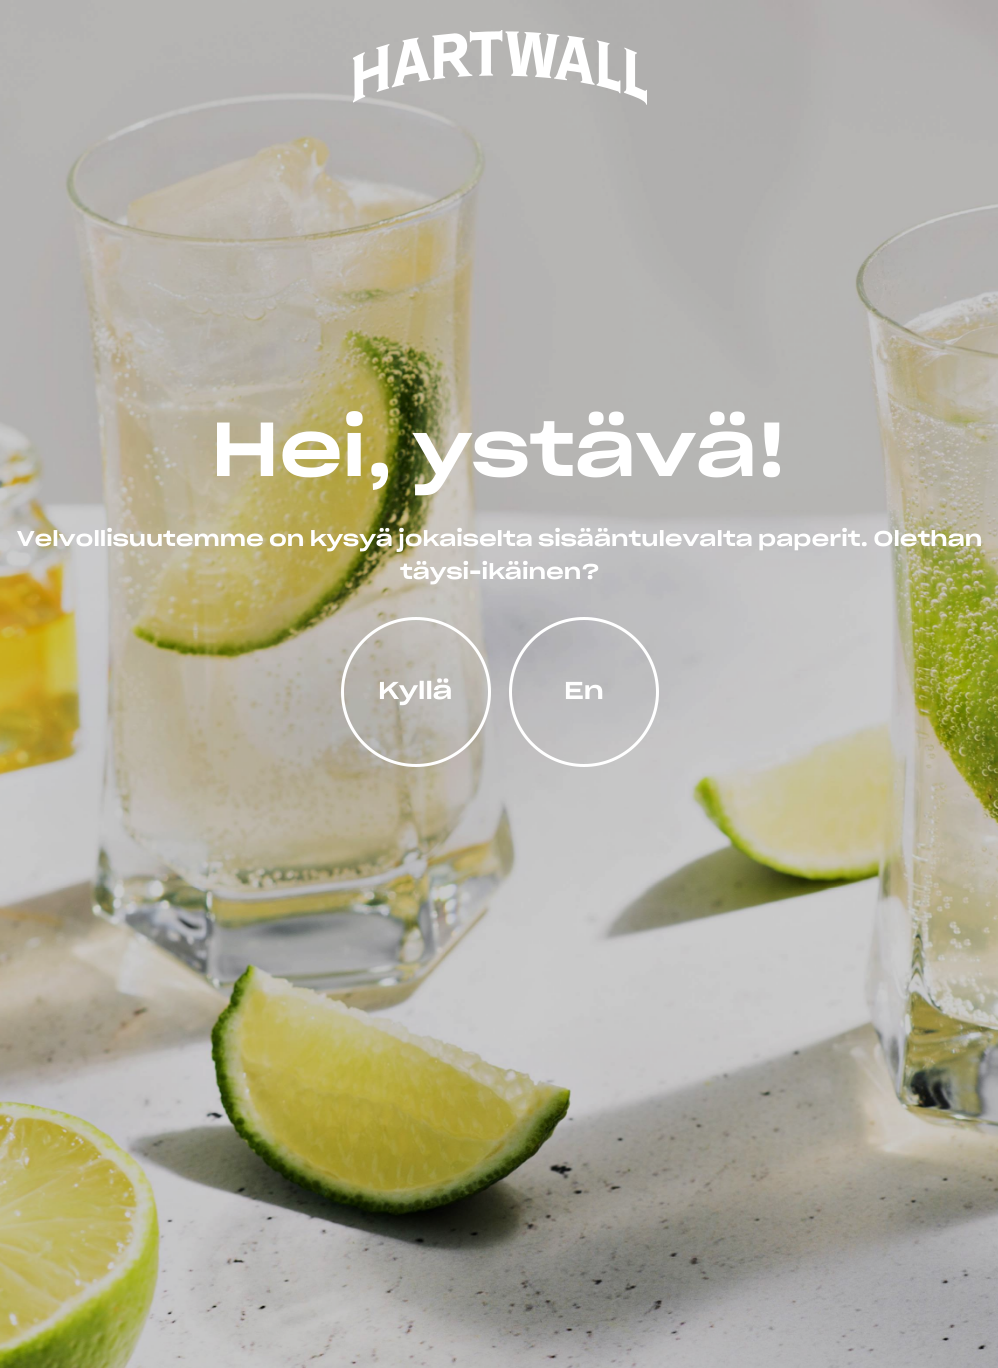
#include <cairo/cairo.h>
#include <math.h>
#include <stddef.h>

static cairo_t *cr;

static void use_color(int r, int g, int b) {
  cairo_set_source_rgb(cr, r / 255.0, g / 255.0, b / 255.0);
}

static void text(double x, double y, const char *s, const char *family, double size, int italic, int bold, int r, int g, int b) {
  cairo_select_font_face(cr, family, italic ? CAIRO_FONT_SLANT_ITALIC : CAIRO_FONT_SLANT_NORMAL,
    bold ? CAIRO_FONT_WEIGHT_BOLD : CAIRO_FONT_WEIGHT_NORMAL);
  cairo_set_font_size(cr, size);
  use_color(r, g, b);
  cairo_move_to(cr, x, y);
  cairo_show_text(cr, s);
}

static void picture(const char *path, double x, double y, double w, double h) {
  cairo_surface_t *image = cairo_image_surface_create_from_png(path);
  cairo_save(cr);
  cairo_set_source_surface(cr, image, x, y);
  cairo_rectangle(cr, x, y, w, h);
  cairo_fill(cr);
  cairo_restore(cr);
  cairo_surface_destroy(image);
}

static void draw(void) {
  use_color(255, 255, 255);
  cairo_paint(cr);
  picture("img_01.png", 0, 0, 998, 1368);
  picture("img_02.png", 353, 30, 294, 75);
  cairo_arc(cr, 416, 692, 73.5, 0, 2 * M_PI);
  use_color(255, 255, 255);
  cairo_set_line_width(cr, 3);
  cairo_stroke(cr);
  cairo_arc(cr, 584, 692, 73.5, 0, 2 * M_PI);
  cairo_stroke(cr);
  text(211, 476, "Hei, ystävä!", "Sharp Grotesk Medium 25 Medium", 75, 0, 0, 255, 255, 255);
  text(17, 546, "Velvollisuutemme on kysyä jokaiselta sisääntulevalta paperit. Olethan", "Sharp Grotesk Medium 25 Medium", 21, 0, 0, 255, 255, 255);
  text(400, 579, "täysi-ikäinen?", "Sharp Grotesk Medium 25 Medium", 21, 0, 0, 255, 255, 255);
  text(378, 699, "Kyllä", "Sharp Grotesk Medium 25 Medium", 24, 0, 0, 255, 255, 255);
  text(564, 699, "En", "Sharp Grotesk Medium 25 Medium", 24, 0, 0, 255, 255, 255);
}

int main(void) {
  cairo_surface_t *surface = cairo_image_surface_create(CAIRO_FORMAT_RGB24, 998, 1368);
  cr = cairo_create(surface);
  cairo_font_options_t *options = cairo_font_options_create();
  cairo_font_options_set_hint_metrics(options, CAIRO_HINT_METRICS_OFF);
  cairo_font_options_set_hint_style(options, CAIRO_HINT_STYLE_NONE);
  cairo_set_font_options(cr, options);
  cairo_set_miter_limit(cr, 4);
  draw();
  cairo_surface_write_to_png(surface, "out.png");
  cairo_font_options_destroy(options);
  cairo_destroy(cr);
  cairo_surface_destroy(surface);
  return 0;
}
